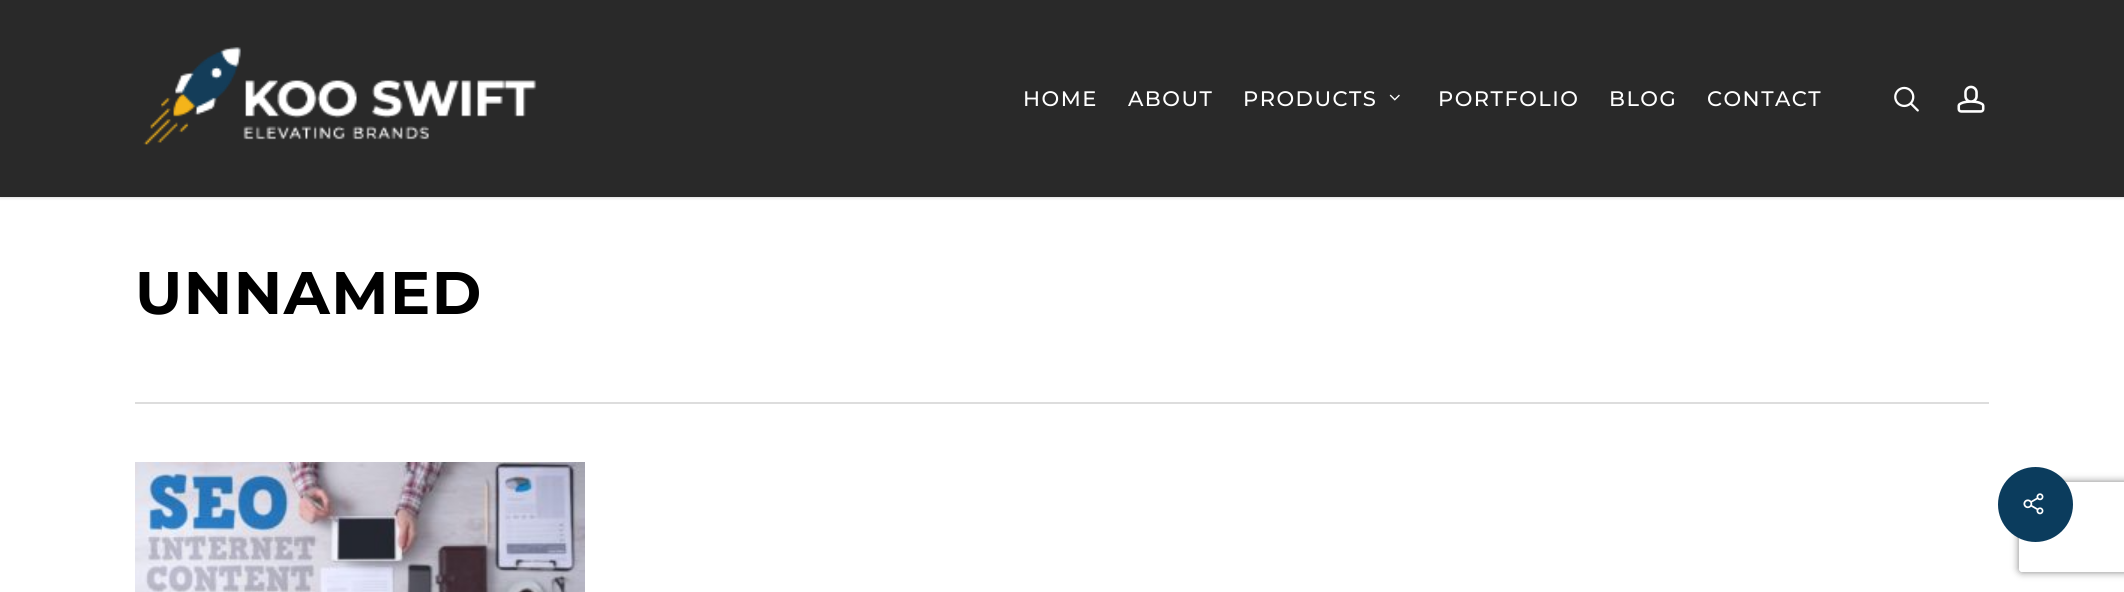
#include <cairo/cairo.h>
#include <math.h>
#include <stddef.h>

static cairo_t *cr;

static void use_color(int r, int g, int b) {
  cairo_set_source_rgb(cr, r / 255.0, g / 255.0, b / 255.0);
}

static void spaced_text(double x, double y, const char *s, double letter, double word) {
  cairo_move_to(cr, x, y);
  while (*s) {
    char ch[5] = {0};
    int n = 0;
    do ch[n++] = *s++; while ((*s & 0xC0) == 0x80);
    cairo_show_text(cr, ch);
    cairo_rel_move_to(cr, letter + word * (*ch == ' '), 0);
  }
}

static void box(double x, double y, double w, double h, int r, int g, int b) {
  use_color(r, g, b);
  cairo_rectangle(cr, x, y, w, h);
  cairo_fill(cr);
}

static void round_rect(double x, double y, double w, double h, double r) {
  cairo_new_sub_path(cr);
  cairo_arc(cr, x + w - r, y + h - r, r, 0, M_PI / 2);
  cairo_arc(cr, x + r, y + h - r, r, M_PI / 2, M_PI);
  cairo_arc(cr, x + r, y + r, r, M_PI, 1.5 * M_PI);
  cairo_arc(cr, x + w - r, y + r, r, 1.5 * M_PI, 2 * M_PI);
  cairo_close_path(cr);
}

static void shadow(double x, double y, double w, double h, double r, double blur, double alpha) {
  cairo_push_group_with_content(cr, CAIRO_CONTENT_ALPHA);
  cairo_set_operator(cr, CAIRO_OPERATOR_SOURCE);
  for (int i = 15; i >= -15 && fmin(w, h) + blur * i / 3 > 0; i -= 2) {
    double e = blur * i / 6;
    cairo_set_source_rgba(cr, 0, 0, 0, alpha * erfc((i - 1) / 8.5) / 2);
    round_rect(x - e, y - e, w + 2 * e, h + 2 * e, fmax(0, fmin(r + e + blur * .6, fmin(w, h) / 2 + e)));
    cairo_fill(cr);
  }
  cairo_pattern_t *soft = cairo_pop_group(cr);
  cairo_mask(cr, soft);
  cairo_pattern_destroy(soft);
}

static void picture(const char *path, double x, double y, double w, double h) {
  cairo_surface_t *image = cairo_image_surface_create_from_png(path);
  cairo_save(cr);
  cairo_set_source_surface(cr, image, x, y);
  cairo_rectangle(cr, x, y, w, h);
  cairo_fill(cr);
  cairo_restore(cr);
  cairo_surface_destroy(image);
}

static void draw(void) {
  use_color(255, 255, 255);
  cairo_paint(cr);
  use_color(0, 0, 0);
  shadow(0, 0, 2124, 197, 0, 2, 0.22);
  box(0, 0, 2124, 197, 41, 41, 41);
  picture("img_01.png", 143, 47, 394, 98);
  picture("img_02.png", 1389, 94, 11, 7);
  picture("img_03.png", 1894, 86, 25, 26);
  picture("img_04.png", 1957, 85, 28, 28);
  box(135, 402, 1854, 2, 221, 221, 221);
  picture("img_05.png", 135, 462, 450, 130);
  cairo_save(cr);
  cairo_set_fill_rule(cr, CAIRO_FILL_RULE_EVEN_ODD);
  cairo_new_path(cr);
  cairo_move_to(cr, 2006, 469);
  cairo_line_to(cr, 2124, 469);
  cairo_line_to(cr, 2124, 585);
  cairo_line_to(cr, 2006, 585);
  cairo_close_path(cr);
  cairo_move_to(cr, 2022, 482);
  cairo_line_to(cr, 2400, 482);
  cairo_curve_to(cr, 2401.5, 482, 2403, 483.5, 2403, 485);
  cairo_line_to(cr, 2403, 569);
  cairo_curve_to(cr, 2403, 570.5, 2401.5, 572, 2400, 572);
  cairo_line_to(cr, 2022, 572);
  cairo_curve_to(cr, 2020.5, 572, 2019, 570.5, 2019, 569);
  cairo_line_to(cr, 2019, 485);
  cairo_curve_to(cr, 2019, 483.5, 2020.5, 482, 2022, 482);
  cairo_close_path(cr);
  cairo_clip(cr);
  use_color(128, 128, 128);
  shadow(2019, 482, 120, 90, 3, 4, 1);
  cairo_restore(cr);
  use_color(11, 60, 93);
  cairo_arc(cr, 2035.5, 504.5, 37.5, 0, 2 * M_PI);
  cairo_fill(cr);
  picture("img_06.png", 2023, 493, 21, 22);
  cairo_select_font_face(cr, "Montserrat Medium", CAIRO_FONT_SLANT_NORMAL, CAIRO_FONT_WEIGHT_NORMAL);
  cairo_set_font_size(cr, 21);
  use_color(255, 255, 255);
  spaced_text(1023, 106, "HOME", 1.5, 0);
  spaced_text(1128, 106, "ABOUT", 1.5, 0);
  spaced_text(1243, 106, "PRODUCTS", 1.5, 0);
  spaced_text(1438, 106, "PORTFOLIO", 1.5, 0);
  spaced_text(1609, 106, "BLOG", 1.5, 0);
  spaced_text(1707, 106, "CONTACT", 1.5, 0);
  cairo_select_font_face(cr, "Montserrat", CAIRO_FONT_SLANT_NORMAL, CAIRO_FONT_WEIGHT_BOLD);
  cairo_set_font_size(cr, 60);
  use_color(0, 0, 0);
  spaced_text(135, 314, "UNNAMED", 1.5, 0);
}

int main(void) {
  cairo_surface_t *surface = cairo_image_surface_create(CAIRO_FORMAT_RGB24, 2124, 592);
  cr = cairo_create(surface);
  cairo_font_options_t *options = cairo_font_options_create();
  cairo_font_options_set_hint_metrics(options, CAIRO_HINT_METRICS_OFF);
  cairo_font_options_set_hint_style(options, CAIRO_HINT_STYLE_NONE);
  cairo_set_font_options(cr, options);
  cairo_set_miter_limit(cr, 4);
  draw();
  cairo_surface_write_to_png(surface, "out.png");
  cairo_font_options_destroy(options);
  cairo_destroy(cr);
  cairo_surface_destroy(surface);
  return 0;
}
